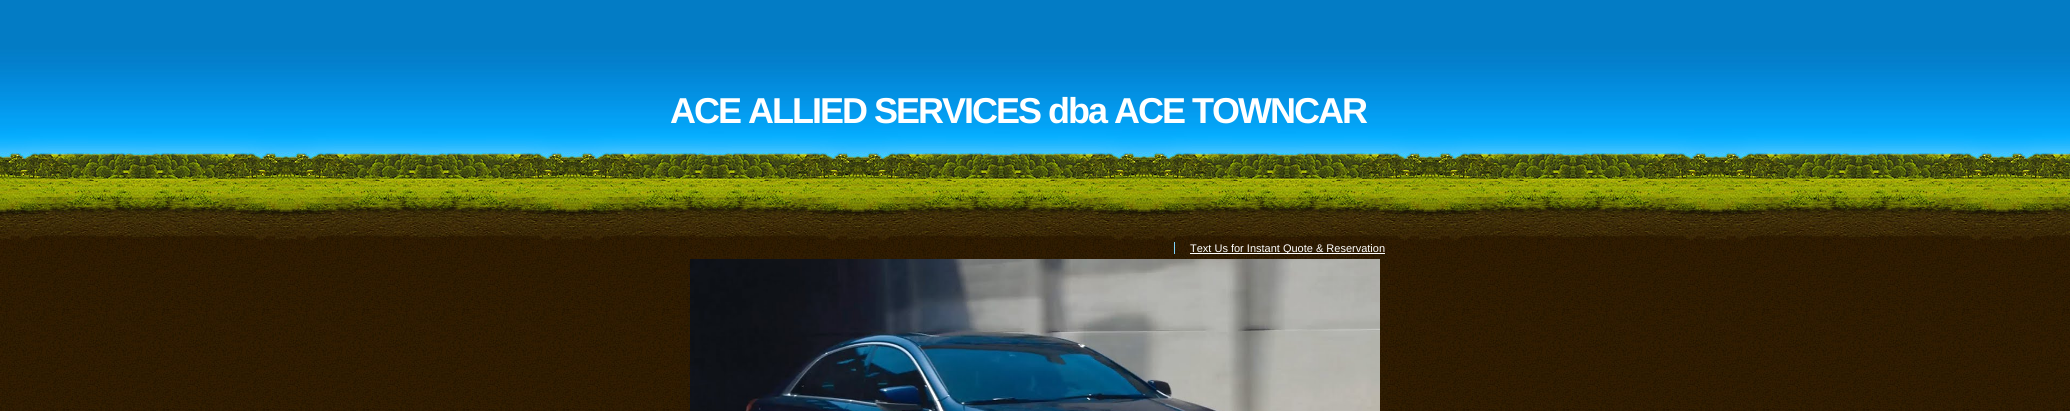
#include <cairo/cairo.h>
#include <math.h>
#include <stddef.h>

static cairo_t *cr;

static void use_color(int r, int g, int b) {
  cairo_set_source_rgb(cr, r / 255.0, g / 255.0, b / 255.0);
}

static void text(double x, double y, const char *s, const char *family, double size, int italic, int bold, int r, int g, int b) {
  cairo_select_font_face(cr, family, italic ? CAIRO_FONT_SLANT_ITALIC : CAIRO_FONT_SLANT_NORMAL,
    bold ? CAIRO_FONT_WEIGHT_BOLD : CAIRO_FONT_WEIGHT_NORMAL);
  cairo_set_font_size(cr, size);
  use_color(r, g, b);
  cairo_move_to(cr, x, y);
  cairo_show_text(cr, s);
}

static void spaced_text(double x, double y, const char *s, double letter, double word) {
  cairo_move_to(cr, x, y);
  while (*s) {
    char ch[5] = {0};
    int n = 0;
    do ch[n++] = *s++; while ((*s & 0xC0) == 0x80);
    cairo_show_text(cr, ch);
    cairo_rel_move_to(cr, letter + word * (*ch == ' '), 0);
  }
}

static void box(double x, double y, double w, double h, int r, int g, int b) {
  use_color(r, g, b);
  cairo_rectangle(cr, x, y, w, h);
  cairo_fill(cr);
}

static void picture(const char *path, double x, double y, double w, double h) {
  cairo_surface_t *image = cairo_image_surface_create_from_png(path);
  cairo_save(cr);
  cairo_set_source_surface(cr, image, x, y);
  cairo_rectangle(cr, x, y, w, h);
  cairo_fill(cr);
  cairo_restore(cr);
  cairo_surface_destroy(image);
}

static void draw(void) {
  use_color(255, 255, 255);
  cairo_paint(cr);
  picture("img_01.png", 0, 250, 2070, 161);
  picture("img_02.png", 0, 0, 2070, 250);
  box(1174, 242, 1, 12, 125, 210, 250);
  box(1190, 253, 195, 1, 255, 255, 255);
  picture("img_03.png", 690, 259, 690, 152);
  cairo_select_font_face(cr, "Liberation Sans", CAIRO_FONT_SLANT_NORMAL, CAIRO_FONT_WEIGHT_BOLD);
  cairo_set_font_size(cr, 36);
  spaced_text(670, 123, "ACE ALLIED SERVICES dba ACE TOWNCAR", -2, 0);
  text(1190, 252, "Text Us for Instant Quote & Reservation", "Liberation Sans", 11, 0, 0, 255, 255, 255);
}

int main(void) {
  cairo_surface_t *surface = cairo_image_surface_create(CAIRO_FORMAT_RGB24, 2070, 411);
  cr = cairo_create(surface);
  cairo_font_options_t *options = cairo_font_options_create();
  cairo_font_options_set_hint_metrics(options, CAIRO_HINT_METRICS_OFF);
  cairo_font_options_set_hint_style(options, CAIRO_HINT_STYLE_NONE);
  cairo_set_font_options(cr, options);
  cairo_set_miter_limit(cr, 4);
  draw();
  cairo_surface_write_to_png(surface, "out.png");
  cairo_font_options_destroy(options);
  cairo_destroy(cr);
  cairo_surface_destroy(surface);
  return 0;
}
